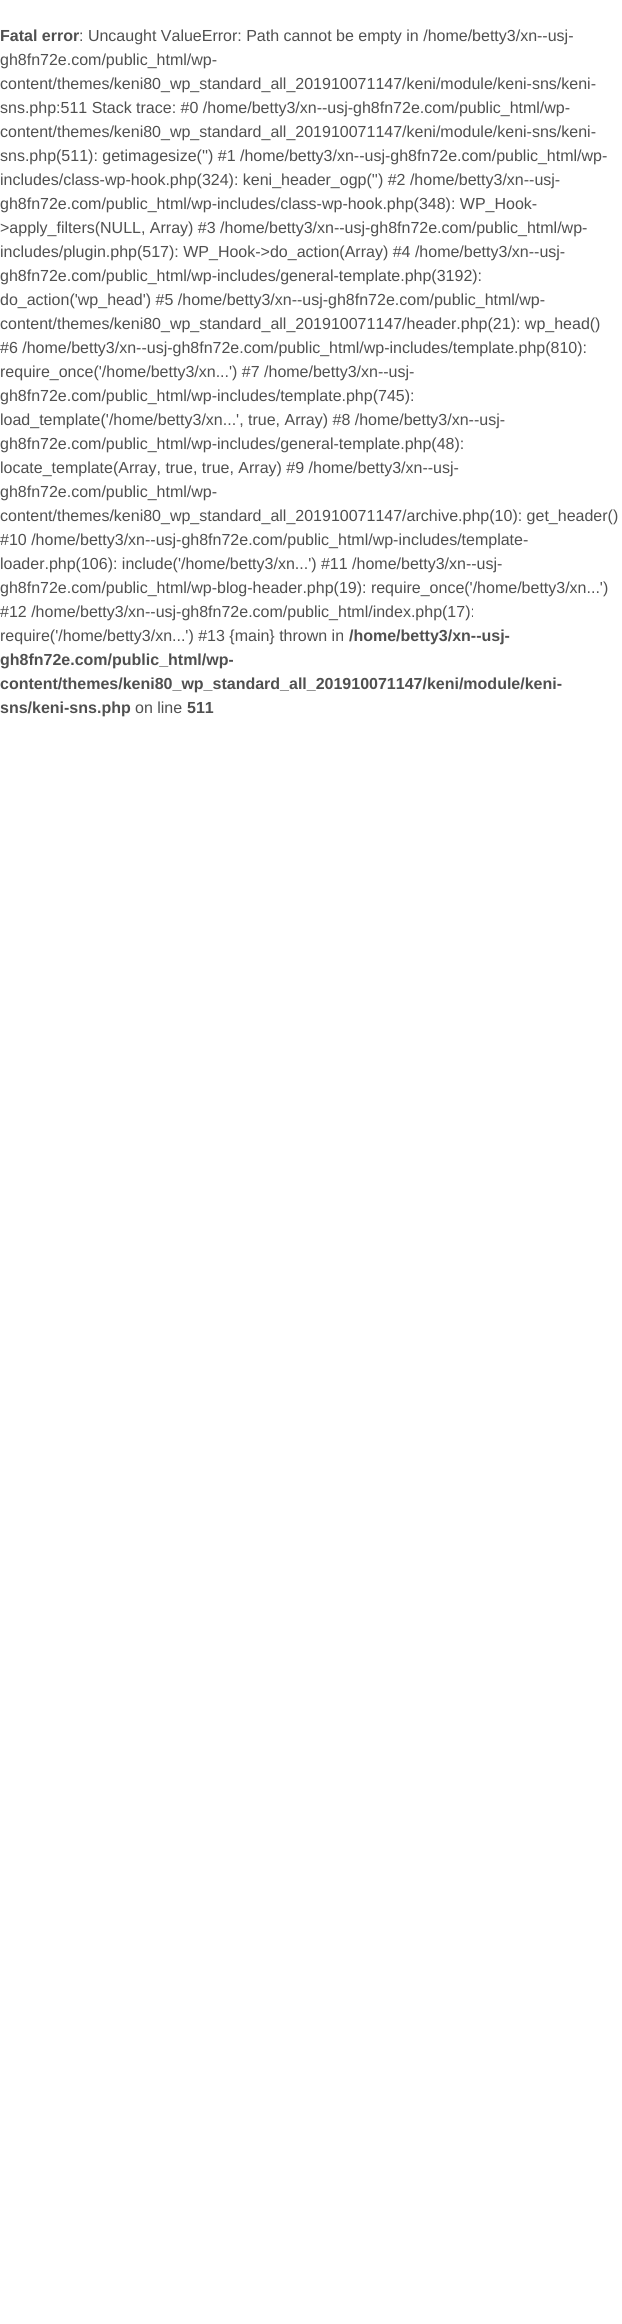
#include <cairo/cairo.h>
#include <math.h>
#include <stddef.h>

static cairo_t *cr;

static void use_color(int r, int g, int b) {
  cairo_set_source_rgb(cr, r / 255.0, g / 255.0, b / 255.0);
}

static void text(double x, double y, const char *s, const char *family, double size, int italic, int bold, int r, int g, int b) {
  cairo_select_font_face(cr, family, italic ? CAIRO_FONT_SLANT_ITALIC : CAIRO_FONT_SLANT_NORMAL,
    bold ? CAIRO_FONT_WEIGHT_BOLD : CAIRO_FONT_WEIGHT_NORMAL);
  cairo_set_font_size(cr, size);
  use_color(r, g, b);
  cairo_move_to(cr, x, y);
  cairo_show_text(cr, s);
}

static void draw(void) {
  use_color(255, 255, 255);
  cairo_paint(cr);
  text(0, 41, "Fatal error", "Liberation Sans", 16, 0, 1, 80, 80, 80);
  text(79, 41, ": Uncaught ValueError: Path cannot be empty in /home/betty3/xn--usj-", "Liberation Sans", 16, 0, 0, 80, 80, 80);
  text(0, 65, "gh8fn72e.com/public_html/wp-", "Liberation Sans", 16, 0, 0, 80, 80, 80);
  text(0, 89, "content/themes/keni80_wp_standard_all_201910071147/keni/module/keni-sns/keni-", "Liberation Sans", 16, 0, 0, 80, 80, 80);
  text(0, 113, "sns.php:511 Stack trace: #0 /home/betty3/xn--usj-gh8fn72e.com/public_html/wp-", "Liberation Sans", 16, 0, 0, 80, 80, 80);
  text(0, 137, "content/themes/keni80_wp_standard_all_201910071147/keni/module/keni-sns/keni-", "Liberation Sans", 16, 0, 0, 80, 80, 80);
  text(0, 161, "sns.php(511): getimagesize('') #1 /home/betty3/xn--usj-gh8fn72e.com/public_html/wp-", "Liberation Sans", 16, 0, 0, 80, 80, 80);
  text(0, 185, "includes/class-wp-hook.php(324): keni_header_ogp('') #2 /home/betty3/xn--usj-", "Liberation Sans", 16, 0, 0, 80, 80, 80);
  text(0, 209, "gh8fn72e.com/public_html/wp-includes/class-wp-hook.php(348): WP_Hook-", "Liberation Sans", 16, 0, 0, 80, 80, 80);
  text(0, 233, ">apply_filters(NULL, Array) #3 /home/betty3/xn--usj-gh8fn72e.com/public_html/wp-", "Liberation Sans", 16, 0, 0, 80, 80, 80);
  text(0, 257, "includes/plugin.php(517): WP_Hook->do_action(Array) #4 /home/betty3/xn--usj-", "Liberation Sans", 16, 0, 0, 80, 80, 80);
  text(0, 281, "gh8fn72e.com/public_html/wp-includes/general-template.php(3192):", "Liberation Sans", 16, 0, 0, 80, 80, 80);
  text(0, 305, "do_action('wp_head') #5 /home/betty3/xn--usj-gh8fn72e.com/public_html/wp-", "Liberation Sans", 16, 0, 0, 80, 80, 80);
  text(0, 329, "content/themes/keni80_wp_standard_all_201910071147/header.php(21): wp_head()", "Liberation Sans", 16, 0, 0, 80, 80, 80);
  text(0, 353, "#6 /home/betty3/xn--usj-gh8fn72e.com/public_html/wp-includes/template.php(810):", "Liberation Sans", 16, 0, 0, 80, 80, 80);
  text(0, 377, "require_once('/home/betty3/xn...') #7 /home/betty3/xn--usj-", "Liberation Sans", 16, 0, 0, 80, 80, 80);
  text(0, 401, "gh8fn72e.com/public_html/wp-includes/template.php(745):", "Liberation Sans", 16, 0, 0, 80, 80, 80);
  text(0, 425, "load_template('/home/betty3/xn...', true, Array) #8 /home/betty3/xn--usj-", "Liberation Sans", 16, 0, 0, 80, 80, 80);
  text(0, 449, "gh8fn72e.com/public_html/wp-includes/general-template.php(48):", "Liberation Sans", 16, 0, 0, 80, 80, 80);
  text(0, 473, "locate_template(Array, true, true, Array) #9 /home/betty3/xn--usj-", "Liberation Sans", 16, 0, 0, 80, 80, 80);
  text(0, 497, "gh8fn72e.com/public_html/wp-", "Liberation Sans", 16, 0, 0, 80, 80, 80);
  text(0, 521, "content/themes/keni80_wp_standard_all_201910071147/archive.php(10): get_header()", "Liberation Sans", 16, 0, 0, 80, 80, 80);
  text(0, 545, "#10 /home/betty3/xn--usj-gh8fn72e.com/public_html/wp-includes/template-", "Liberation Sans", 16, 0, 0, 80, 80, 80);
  text(0, 569, "loader.php(106): include('/home/betty3/xn...') #11 /home/betty3/xn--usj-", "Liberation Sans", 16, 0, 0, 80, 80, 80);
  text(0, 593, "gh8fn72e.com/public_html/wp-blog-header.php(19): require_once('/home/betty3/xn...')", "Liberation Sans", 16, 0, 0, 80, 80, 80);
  text(0, 617, "#12 /home/betty3/xn--usj-gh8fn72e.com/public_html/index.php(17):", "Liberation Sans", 16, 0, 0, 80, 80, 80);
  text(0, 641, "require('/home/betty3/xn...') #13 {main} thrown in", "Liberation Sans", 16, 0, 0, 80, 80, 80);
  text(349, 641, "/home/betty3/xn--usj-", "Liberation Sans", 16, 0, 1, 80, 80, 80);
  text(0, 665, "gh8fn72e.com/public_html/wp-", "Liberation Sans", 16, 0, 1, 80, 80, 80);
  text(0, 689, "content/themes/keni80_wp_standard_all_201910071147/keni/module/keni-", "Liberation Sans", 16, 0, 1, 80, 80, 80);
  text(0, 713, "sns/keni-sns.php", "Liberation Sans", 16, 0, 1, 80, 80, 80);
  text(135, 713, "on line", "Liberation Sans", 16, 0, 0, 80, 80, 80);
  text(187, 713, "511", "Liberation Sans", 16, 0, 1, 80, 80, 80);
}

int main(void) {
  cairo_surface_t *surface = cairo_image_surface_create(CAIRO_FORMAT_RGB24, 622, 2324);
  cr = cairo_create(surface);
  cairo_font_options_t *options = cairo_font_options_create();
  cairo_font_options_set_hint_metrics(options, CAIRO_HINT_METRICS_OFF);
  cairo_font_options_set_hint_style(options, CAIRO_HINT_STYLE_NONE);
  cairo_set_font_options(cr, options);
  cairo_set_miter_limit(cr, 4);
  draw();
  cairo_surface_write_to_png(surface, "out.png");
  cairo_font_options_destroy(options);
  cairo_destroy(cr);
  cairo_surface_destroy(surface);
  return 0;
}
